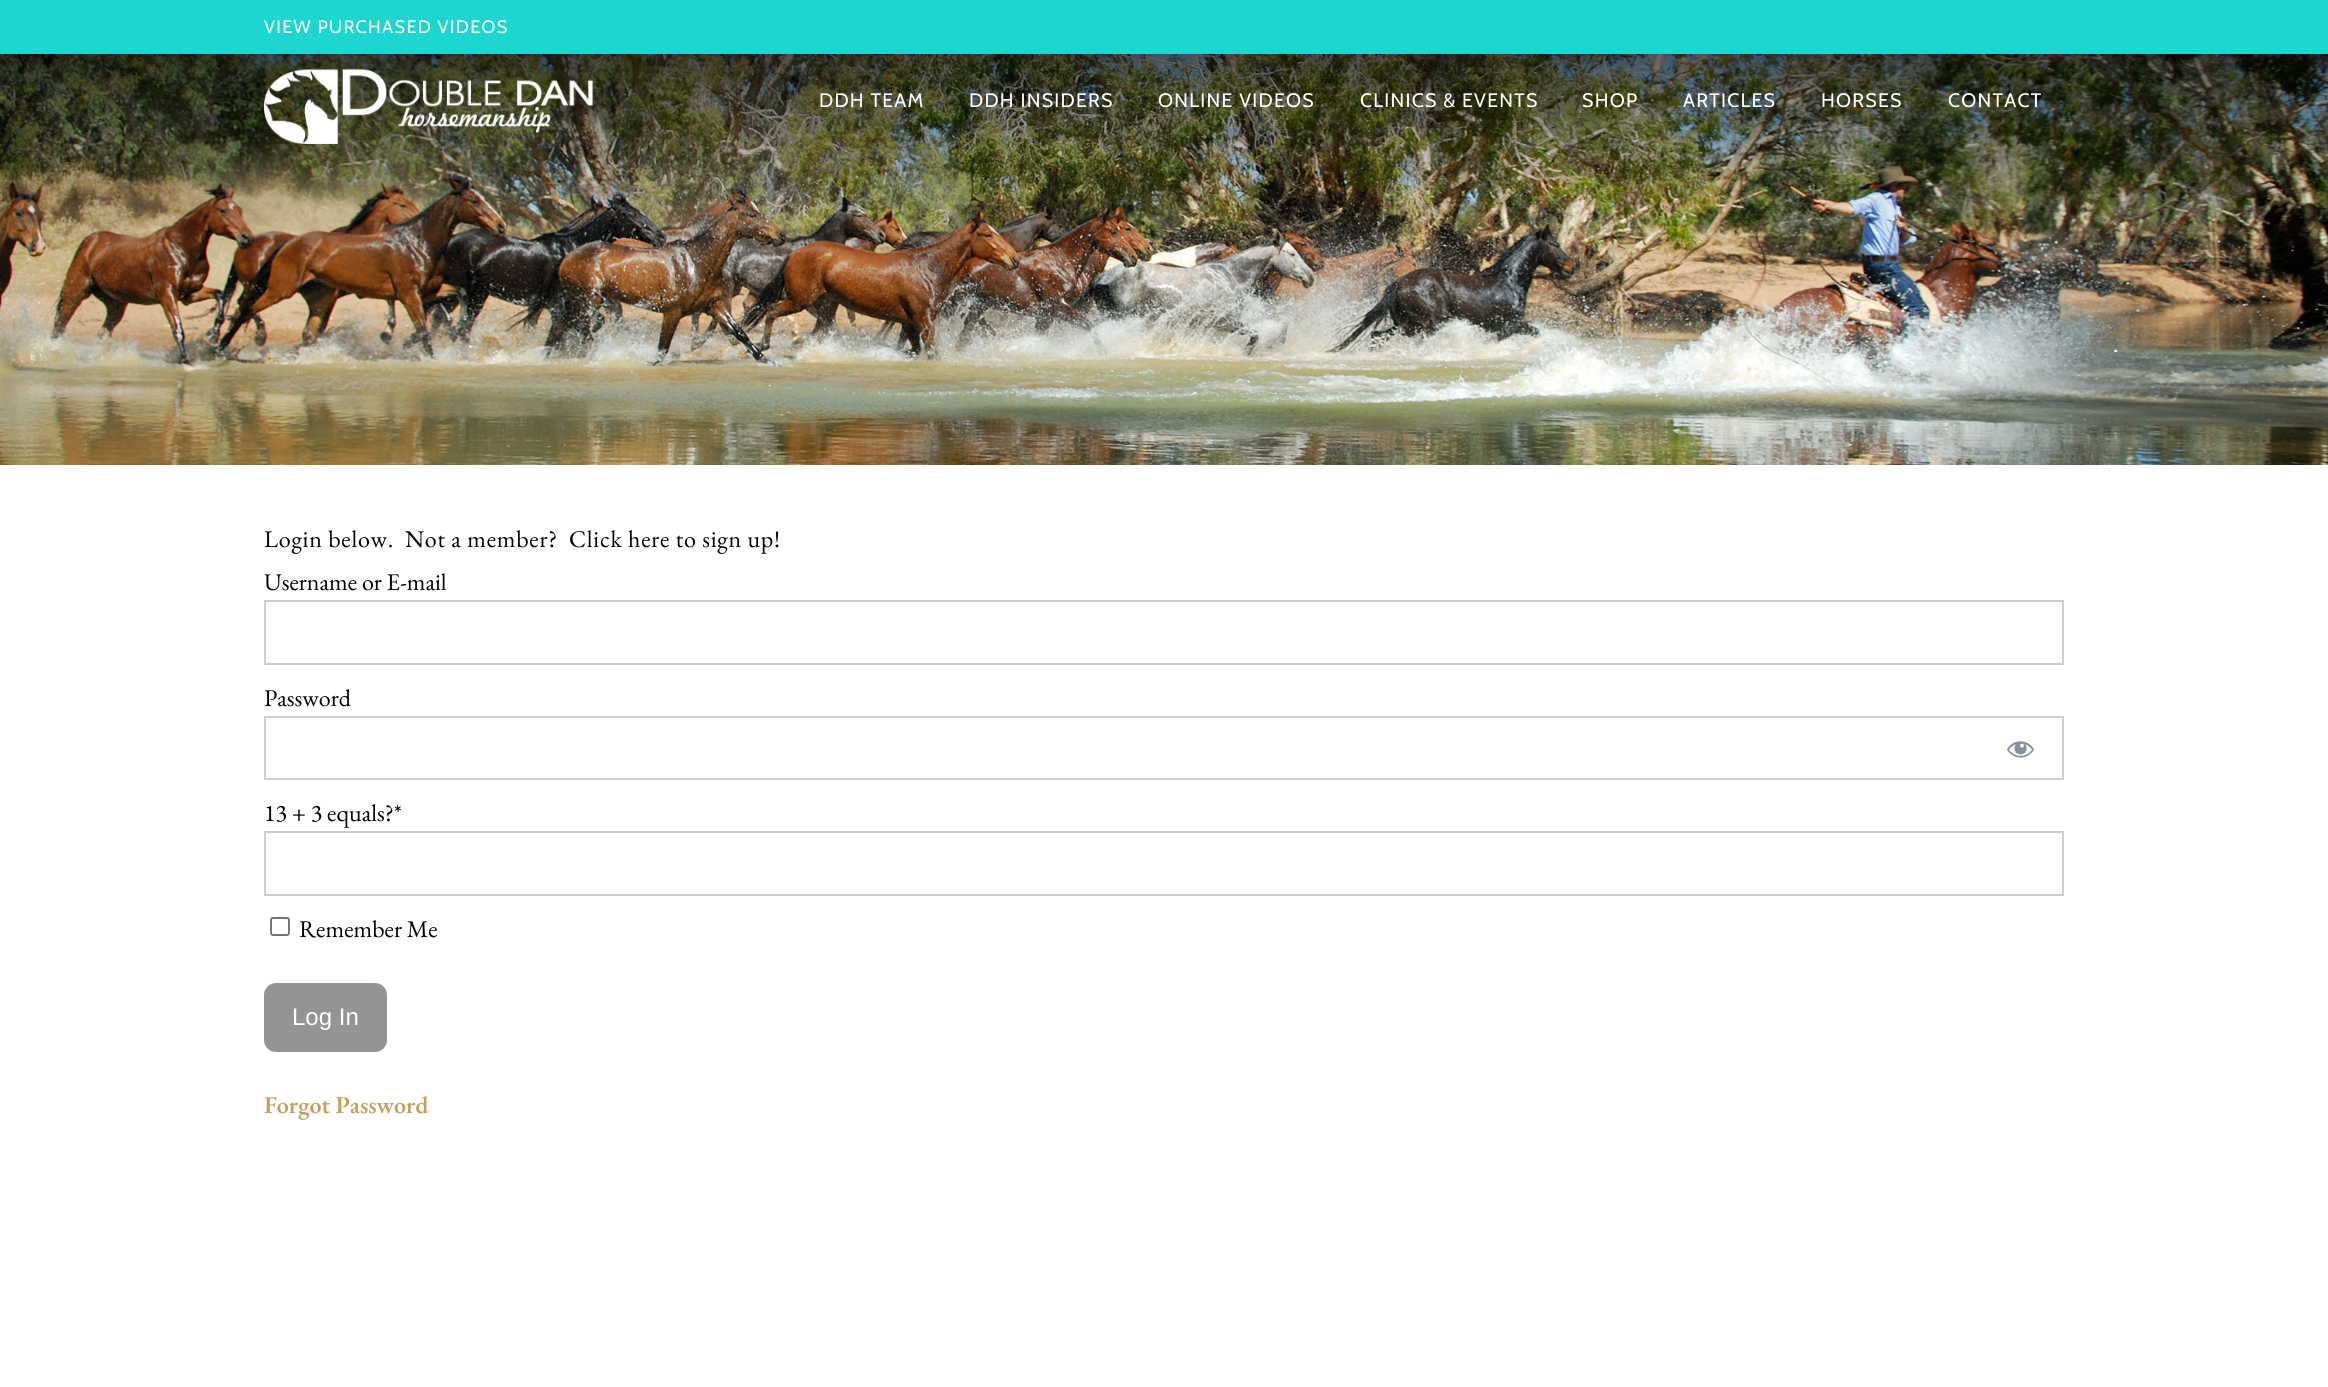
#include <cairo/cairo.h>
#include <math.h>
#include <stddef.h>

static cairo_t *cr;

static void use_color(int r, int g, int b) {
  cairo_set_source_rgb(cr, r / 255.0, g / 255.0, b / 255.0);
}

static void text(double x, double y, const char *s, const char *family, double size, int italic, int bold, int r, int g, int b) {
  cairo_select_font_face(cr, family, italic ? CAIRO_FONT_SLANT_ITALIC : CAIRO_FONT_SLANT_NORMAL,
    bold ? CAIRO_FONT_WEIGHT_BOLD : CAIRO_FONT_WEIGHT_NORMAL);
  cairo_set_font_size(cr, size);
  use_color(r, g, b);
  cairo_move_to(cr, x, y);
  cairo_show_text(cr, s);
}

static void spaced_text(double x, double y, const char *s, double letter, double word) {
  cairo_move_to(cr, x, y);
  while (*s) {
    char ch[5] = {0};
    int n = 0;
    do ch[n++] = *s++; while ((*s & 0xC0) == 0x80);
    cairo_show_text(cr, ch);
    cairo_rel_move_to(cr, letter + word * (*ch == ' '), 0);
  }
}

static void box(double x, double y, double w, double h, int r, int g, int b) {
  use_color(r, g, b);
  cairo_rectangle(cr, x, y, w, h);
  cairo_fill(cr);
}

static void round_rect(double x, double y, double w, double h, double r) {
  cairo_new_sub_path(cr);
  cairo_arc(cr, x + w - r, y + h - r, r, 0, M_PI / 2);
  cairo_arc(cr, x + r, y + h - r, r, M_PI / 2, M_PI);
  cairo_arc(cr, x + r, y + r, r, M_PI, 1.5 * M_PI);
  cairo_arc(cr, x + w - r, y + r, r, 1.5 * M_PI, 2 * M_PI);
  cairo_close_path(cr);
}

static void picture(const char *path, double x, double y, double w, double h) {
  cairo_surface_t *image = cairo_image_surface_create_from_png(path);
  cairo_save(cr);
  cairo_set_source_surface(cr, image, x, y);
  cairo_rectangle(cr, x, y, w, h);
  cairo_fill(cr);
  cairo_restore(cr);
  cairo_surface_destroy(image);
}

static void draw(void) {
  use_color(255, 255, 255);
  cairo_paint(cr);
  box(0, 0, 2328, 54, 29, 214, 207);
  picture("img_02.png", 0, 54, 2328, 411);
  picture("img_01.png", 264, 69, 329, 75);
  cairo_rectangle(cr, 265, 601, 1798, 63);
  use_color(204, 204, 204);
  cairo_stroke(cr);
  cairo_rectangle(cr, 265, 717, 1798, 62);
  cairo_stroke(cr);
  picture("img_03.png", 2007, 741, 28, 17);
  cairo_rectangle(cr, 265, 832, 1798, 63);
  cairo_stroke(cr);
  round_rect(271, 918, 18, 17, 2);
  use_color(118, 118, 118);
  cairo_stroke(cr);
  use_color(148, 148, 148);
  round_rect(265, 984, 121, 67, 11);
  cairo_fill_preserve(cr);
  cairo_stroke(cr);
  cairo_select_font_face(cr, "Cabin", CAIRO_FONT_SLANT_NORMAL, CAIRO_FONT_WEIGHT_NORMAL);
  cairo_set_font_size(cr, 18);
  use_color(255, 255, 255);
  spaced_text(264, 33, "VIEW PURCHASED VIDEOS", 1.35, 0);
  cairo_set_font_size(cr, 19.5);
  spaced_text(819, 107, "DDH TEAM", 1.25, 0);
  spaced_text(969, 107, "DDH INSIDERS", 1.25, 0);
  spaced_text(1158, 107, "ONLINE VIDEOS", 1.25, 0);
  spaced_text(1360, 107, "CLINICS & EVENTS", 1.25, 0);
  spaced_text(1582, 107, "SHOP", 1.25, 0);
  spaced_text(1683, 107, "ARTICLES", 1.25, 0);
  spaced_text(1821, 107, "HORSES", 1.25, 0);
  spaced_text(1948, 107, "CONTACT", 1.25, 0);
  cairo_select_font_face(cr, "EB Garamond", CAIRO_FONT_SLANT_NORMAL, CAIRO_FONT_WEIGHT_NORMAL);
  cairo_set_font_size(cr, 24);
  use_color(0, 0, 0);
  spaced_text(264, 547, "Login below.  Not a member?  Click here to sign up!", 0.75, 0);
  text(264, 590, "Username or E-mail", "EB Garamond", 24, 0, 0, 0, 0, 0);
  text(264, 706, "Password", "EB Garamond", 24, 0, 0, 0, 0, 0);
  text(264, 821, "13 + 3 equals?*", "EB Garamond", 24, 0, 0, 0, 0, 0);
  text(299, 937, "Remember Me", "EB Garamond", 24, 0, 0, 0, 0, 0);
  text(292, 1025, "Log In", "Liberation Sans", 24, 0, 0, 255, 255, 255);
  text(264, 1113, "Forgot Password", "EB Garamond SemiBold", 24, 0, 0, 197, 157, 95);
}

int main(void) {
  cairo_surface_t *surface = cairo_image_surface_create(CAIRO_FORMAT_RGB24, 2328, 1387);
  cr = cairo_create(surface);
  cairo_font_options_t *options = cairo_font_options_create();
  cairo_font_options_set_hint_metrics(options, CAIRO_HINT_METRICS_OFF);
  cairo_font_options_set_hint_style(options, CAIRO_HINT_STYLE_NONE);
  cairo_set_font_options(cr, options);
  cairo_set_miter_limit(cr, 4);
  draw();
  cairo_surface_write_to_png(surface, "out.png");
  cairo_font_options_destroy(options);
  cairo_destroy(cr);
  cairo_surface_destroy(surface);
  return 0;
}
